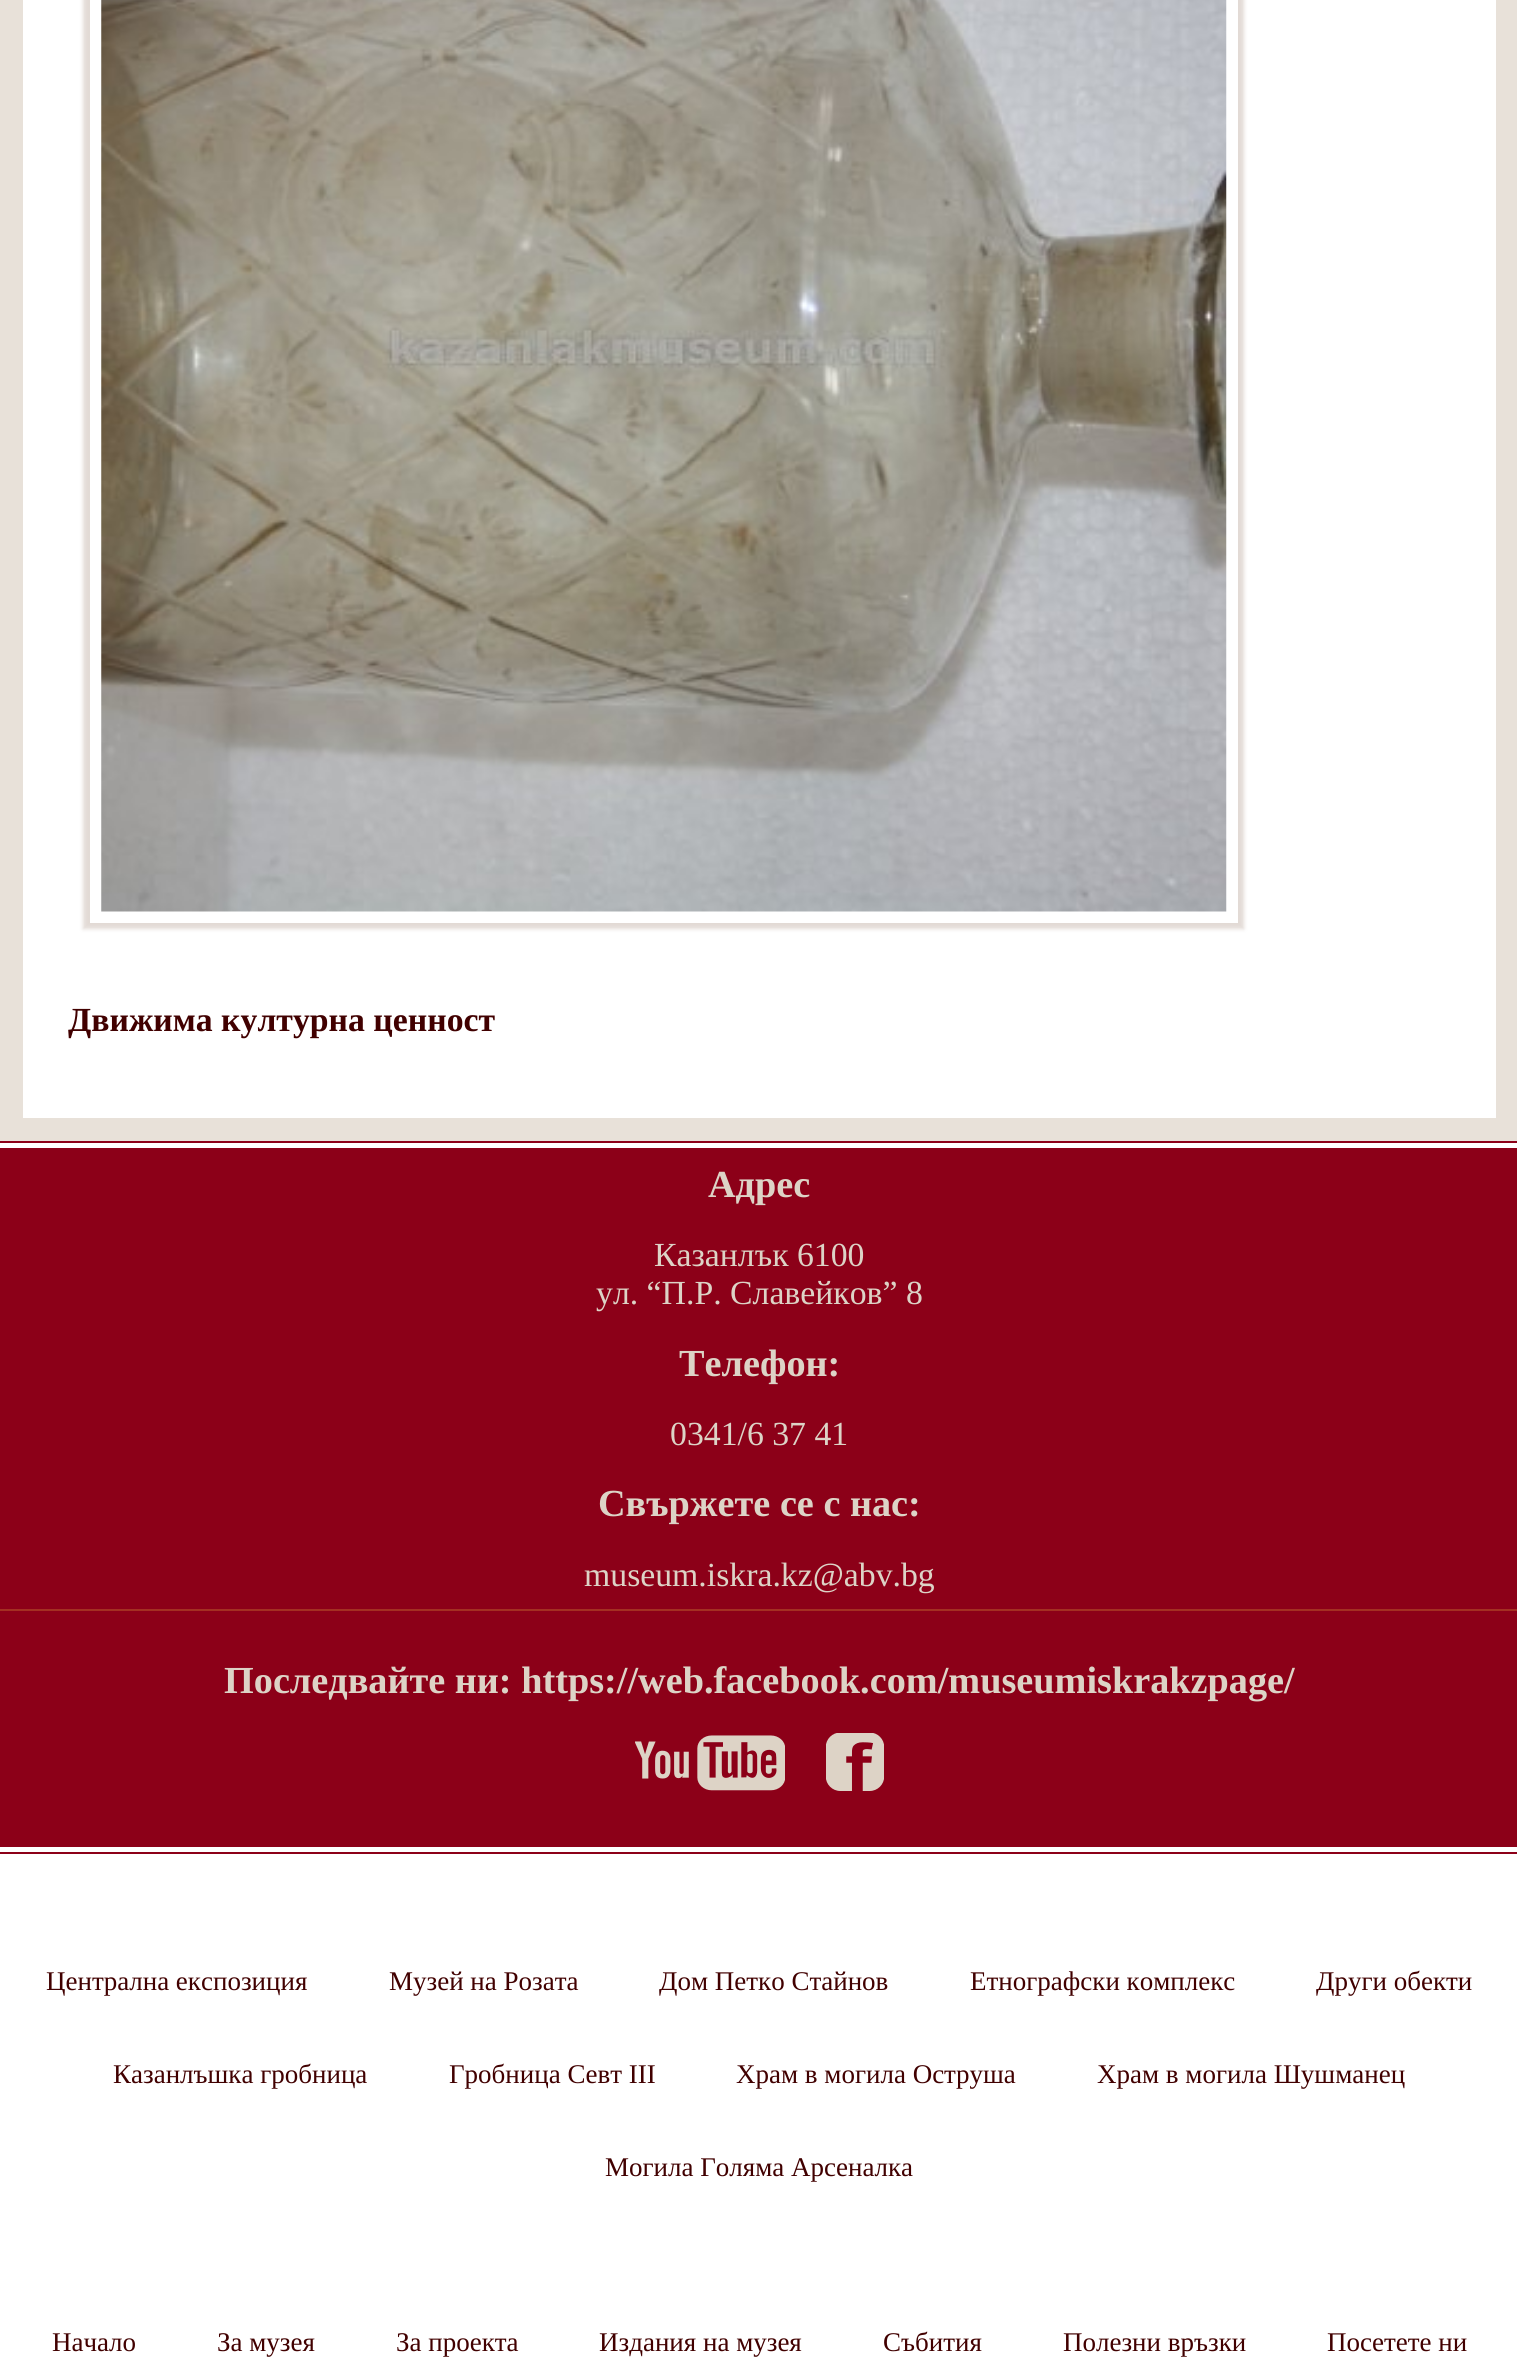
#include <cairo/cairo.h>
#include <math.h>
#include <stddef.h>

static cairo_t *cr;

static void use_color(int r, int g, int b) {
  cairo_set_source_rgb(cr, r / 255.0, g / 255.0, b / 255.0);
}

static void text(double x, double y, const char *s, const char *family, double size, int italic, int bold, int r, int g, int b) {
  cairo_select_font_face(cr, family, italic ? CAIRO_FONT_SLANT_ITALIC : CAIRO_FONT_SLANT_NORMAL,
    bold ? CAIRO_FONT_WEIGHT_BOLD : CAIRO_FONT_WEIGHT_NORMAL);
  cairo_set_font_size(cr, size);
  use_color(r, g, b);
  cairo_move_to(cr, x, y);
  cairo_show_text(cr, s);
}

static void box(double x, double y, double w, double h, int r, int g, int b) {
  use_color(r, g, b);
  cairo_rectangle(cr, x, y, w, h);
  cairo_fill(cr);
}

static void round_rect(double x, double y, double w, double h, double r) {
  cairo_new_sub_path(cr);
  cairo_arc(cr, x + w - r, y + h - r, r, 0, M_PI / 2);
  cairo_arc(cr, x + r, y + h - r, r, M_PI / 2, M_PI);
  cairo_arc(cr, x + r, y + r, r, M_PI, 1.5 * M_PI);
  cairo_arc(cr, x + w - r, y + r, r, 1.5 * M_PI, 2 * M_PI);
  cairo_close_path(cr);
}

static void shadow(double x, double y, double w, double h, double r, double blur, double alpha) {
  cairo_push_group_with_content(cr, CAIRO_CONTENT_ALPHA);
  cairo_set_operator(cr, CAIRO_OPERATOR_SOURCE);
  for (int i = 15; i >= -15 && fmin(w, h) + blur * i / 3 > 0; i -= 2) {
    double e = blur * i / 6;
    cairo_set_source_rgba(cr, 0, 0, 0, alpha * erfc((i - 1) / 8.5) / 2);
    round_rect(x - e, y - e, w + 2 * e, h + 2 * e, fmax(0, fmin(r + e + blur * .6, fmin(w, h) / 2 + e)));
    cairo_fill(cr);
  }
  cairo_pattern_t *soft = cairo_pop_group(cr);
  cairo_mask(cr, soft);
  cairo_pattern_destroy(soft);
}

static void picture(const char *path, double x, double y, double w, double h) {
  cairo_surface_t *image = cairo_image_surface_create_from_png(path);
  cairo_save(cr);
  cairo_set_source_surface(cr, image, x, y);
  cairo_rectangle(cr, x, y, w, h);
  cairo_fill(cr);
  cairo_restore(cr);
  cairo_surface_destroy(image);
}

static void draw(void) {
  use_color(255, 255, 255);
  cairo_paint(cr);
  cairo_rectangle(cr, 11.5, -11.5, 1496, 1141);
  use_color(232, 225, 217);
  cairo_set_line_width(cr, 23);
  cairo_stroke(cr);
  use_color(124, 87, 66);
  shadow(83, -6, 1161, 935, 0, 2, 0.22);
  box(90, 0, 1148, 923, 255, 255, 255);
  picture("img_01.png", 101, 0, 1126, 912);
  box(0, 1141, 1517, 713, 140, 0, 24);
  box(0, 1143, 1517, 5, 255, 255, 255);
  box(0, 1847, 1517, 5, 255, 255, 255);
  box(0, 1609, 1517, 2, 164, 47, 34);
  picture("img_02.png", 635, 1735, 150, 56);
  picture("img_03.png", 826, 1733, 58, 58);
  text(68, 1031, "Движима културна ценност", "Liberation Serif", 33.75, 0, 1, 65, 0, 0);
  text(708, 1197, "Адрес", "Liberation Serif", 38.25, 0, 1, 221, 211, 198);
  text(654, 1266, "Казанлък 6100", "Liberation Serif", 33.75, 0, 0, 221, 211, 198);
  text(596, 1304, "ул. “П.Р. Славейков” 8", "Liberation Serif", 33.75, 0, 0, 221, 211, 198);
  text(679, 1376, "Телефон:", "Liberation Serif", 38.25, 0, 1, 221, 211, 198);
  text(670, 1445, "0341/6 37 41", "Liberation Serif", 33.75, 0, 0, 221, 211, 198);
  text(598, 1516, "Свържете се с нас:", "Liberation Serif", 38.25, 0, 1, 221, 211, 198);
  text(584, 1586, "museum.iskra.kz@abv.bg", "Liberation Serif", 33.75, 0, 0, 221, 211, 198);
  text(224, 1693, "Последвайте ни: https://web.facebook.com/museumiskrakzpage/", "Liberation Serif", 38.25, 0, 1, 221, 211, 198);
  text(46, 1990, "Централна експозиция", "Liberation Serif", 27, 0, 0, 65, 0, 0);
  text(389, 1990, "Музей на Розата", "Liberation Serif", 27, 0, 0, 65, 0, 0);
  text(659, 1990, "Дом Петко Стайнов", "Liberation Serif", 27, 0, 0, 65, 0, 0);
  text(970, 1990, "Етнографски комплекс", "Liberation Serif", 27, 0, 0, 65, 0, 0);
  text(1316, 1990, "Други обекти", "Liberation Serif", 27, 0, 0, 65, 0, 0);
  text(113, 2083, "Казанлъшка гробница", "Liberation Serif", 27, 0, 0, 65, 0, 0);
  text(449, 2083, "Гробница Севт III", "Liberation Serif", 27, 0, 0, 65, 0, 0);
  text(736, 2083, "Храм в могила Оструша", "Liberation Serif", 27, 0, 0, 65, 0, 0);
  text(1097, 2083, "Храм в могила Шушманец", "Liberation Serif", 27, 0, 0, 65, 0, 0);
  text(605, 2176, "Могила Голяма Арсеналка", "Liberation Serif", 27, 0, 0, 65, 0, 0);
  text(52, 2351, "Начало", "Liberation Serif", 27, 0, 0, 65, 0, 0);
  text(217, 2351, "За музея", "Liberation Serif", 27, 0, 0, 65, 0, 0);
  text(396, 2351, "За проекта", "Liberation Serif", 27, 0, 0, 65, 0, 0);
  text(599, 2351, "Издания на музея", "Liberation Serif", 27, 0, 0, 65, 0, 0);
  text(883, 2351, "Събития", "Liberation Serif", 27, 0, 0, 65, 0, 0);
  text(1063, 2351, "Полезни връзки", "Liberation Serif", 27, 0, 0, 65, 0, 0);
  text(1327, 2351, "Посетете ни", "Liberation Serif", 27, 0, 0, 65, 0, 0);
}

int main(void) {
  cairo_surface_t *surface = cairo_image_surface_create(CAIRO_FORMAT_RGB24, 1517, 2379);
  cr = cairo_create(surface);
  cairo_font_options_t *options = cairo_font_options_create();
  cairo_font_options_set_hint_metrics(options, CAIRO_HINT_METRICS_OFF);
  cairo_font_options_set_hint_style(options, CAIRO_HINT_STYLE_NONE);
  cairo_set_font_options(cr, options);
  cairo_set_miter_limit(cr, 4);
  draw();
  cairo_surface_write_to_png(surface, "out.png");
  cairo_font_options_destroy(options);
  cairo_destroy(cr);
  cairo_surface_destroy(surface);
  return 0;
}
